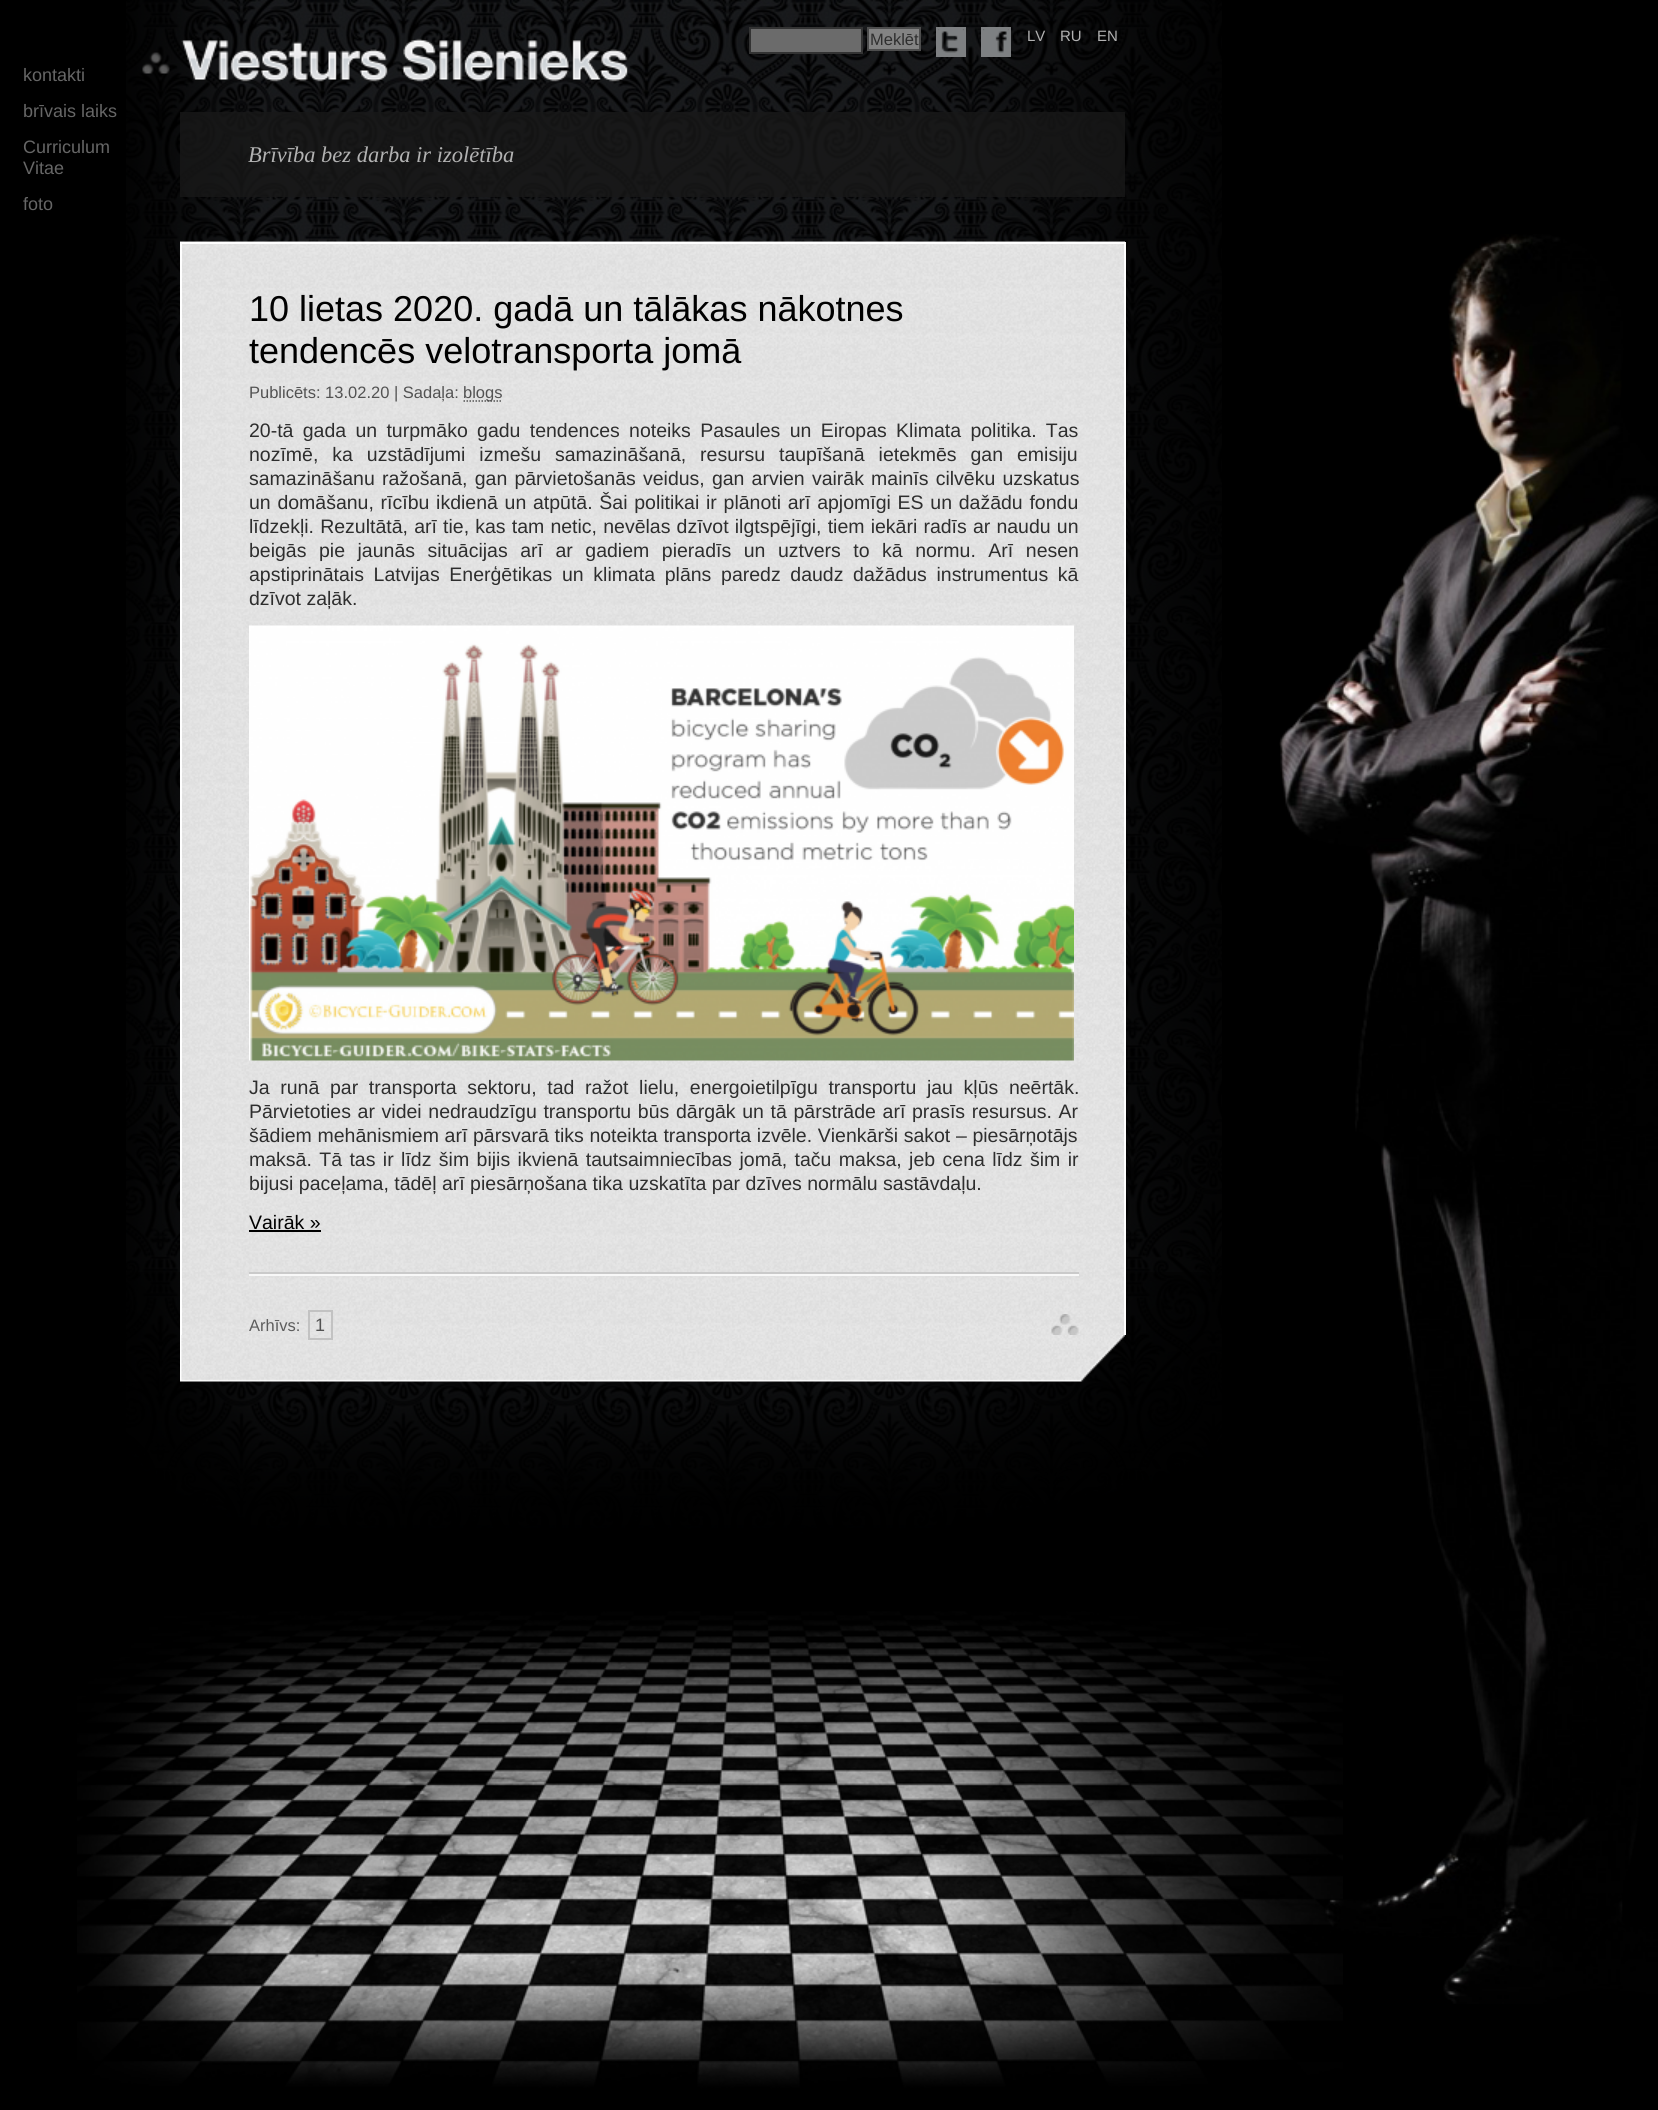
#include <cairo/cairo.h>
#include <math.h>
#include <stddef.h>

static cairo_t *cr;

static void use_color(int r, int g, int b) {
  cairo_set_source_rgb(cr, r / 255.0, g / 255.0, b / 255.0);
}

static void text(double x, double y, const char *s, const char *family, double size, int italic, int bold, int r, int g, int b) {
  cairo_select_font_face(cr, family, italic ? CAIRO_FONT_SLANT_ITALIC : CAIRO_FONT_SLANT_NORMAL,
    bold ? CAIRO_FONT_WEIGHT_BOLD : CAIRO_FONT_WEIGHT_NORMAL);
  cairo_set_font_size(cr, size);
  use_color(r, g, b);
  cairo_move_to(cr, x, y);
  cairo_show_text(cr, s);
}

static void spaced_text(double x, double y, const char *s, double letter, double word) {
  cairo_move_to(cr, x, y);
  while (*s) {
    char ch[5] = {0};
    int n = 0;
    do ch[n++] = *s++; while ((*s & 0xC0) == 0x80);
    cairo_show_text(cr, ch);
    cairo_rel_move_to(cr, letter + word * (*ch == ' '), 0);
  }
}

static void box(double x, double y, double w, double h, int r, int g, int b) {
  use_color(r, g, b);
  cairo_rectangle(cr, x, y, w, h);
  cairo_fill(cr);
}

static void picture(const char *path, double x, double y, double w, double h) {
  cairo_surface_t *image = cairo_image_surface_create_from_png(path);
  cairo_save(cr);
  cairo_set_source_surface(cr, image, x, y);
  cairo_rectangle(cr, x, y, w, h);
  cairo_fill(cr);
  cairo_restore(cr);
  cairo_surface_destroy(image);
}

static void draw(void) {
  use_color(0, 0, 0);
  cairo_paint(cr);
  picture("img_01.png", 126, 0, 1096, 1590);
  picture("img_02.png", 181, 38, 447, 44);
  use_color(107, 107, 107);
  cairo_rectangle(cr, 750, 28, 112, 25);
  cairo_fill_preserve(cr);
  use_color(51, 51, 51);
  cairo_stroke(cr);
  use_color(131, 131, 131);
  cairo_rectangle(cr, 868, 28, 52, 22);
  cairo_fill_preserve(cr);
  use_color(77, 77, 77);
  cairo_stroke(cr);
  picture("img_03.png", 938, 29, 26, 26);
  cairo_rectangle(cr, 937, 28, 28, 28);
  use_color(126, 128, 130);
  cairo_stroke(cr);
  picture("img_04.png", 983, 29, 26, 26);
  cairo_rectangle(cr, 982, 28, 28, 28);
  cairo_stroke(cr);
  picture("img_05.png", 142, 52, 28, 22);
  cairo_set_source_rgba(cr, 0.094, 0.094, 0.094, 0.8);
  cairo_rectangle(cr, 180, 112, 945, 85);
  cairo_fill(cr);
  picture("img_10.png", 77, 1272, 1266, 838);
  picture("img_06.png", 180, 241, 945, 1094);
  box(180, 242, 945, 2, 255, 255, 255);
  box(1124, 242, 2, 1093, 255, 255, 255);
  box(180, 242, 2, 1093, 255, 255, 255);
  box(249, 1274, 830, 2, 248, 248, 248);
  box(249, 1272, 830, 2, 202, 202, 202);
  cairo_new_path(cr);
  cairo_move_to(cr, 463.5, 401);
  cairo_line_to(cr, 502.5, 401);
  use_color(82, 82, 82);
  cairo_set_line_width(cr, 1.5);
  cairo_set_dash(cr, (double[]){1.5, 1.5}, 2, 0);
  cairo_stroke(cr);
  picture("img_07.png", 249, 625, 825, 436);
  box(249, 1230, 72, 2, 0, 0, 0);
  picture("img_11.png", 180, 1335, 945, 47);
  cairo_rectangle(cr, 309, 1311, 23, 28);
  use_color(194, 194, 194);
  cairo_set_line_width(cr, 2);
  cairo_set_dash(cr, NULL, 0, 0);
  cairo_stroke(cr);
  picture("img_08.png", 1051, 1314, 28, 21);
  picture("img_09.png", 1279, 234, 379, 1770);
  text(870, 45, "Meklēt", "Liberation Sans", 16.5, 0, 0, 46, 46, 46);
  text(1027, 41, "LV", "Liberation Sans", 15, 0, 0, 178, 178, 178);
  text(1060, 41, "RU", "Liberation Sans", 15, 0, 0, 178, 178, 178);
  text(1097, 41, "EN", "Liberation Sans", 15, 0, 0, 178, 178, 178);
  text(23, 81, "kontakti", "Liberation Sans", 18, 0, 0, 102, 102, 102);
  text(23, 117, "brīvais laiks", "Liberation Sans", 18, 0, 0, 102, 102, 102);
  text(23, 153, "Curriculum", "Liberation Sans", 18, 0, 0, 102, 102, 102);
  text(23, 174, "Vitae", "Liberation Sans", 18, 0, 0, 102, 102, 102);
  text(23, 210, "foto", "Liberation Sans", 18, 0, 0, 102, 102, 102);
  text(248, 162, "Brīvība bez darba ir izolētība", "Liberation Serif", 22.5, 1, 0, 178, 178, 178);
  text(249, 321, "10 lietas 2020. gadā un tālākas nākotnes", "Liberation Sans", 36, 0, 0, 0, 0, 0);
  text(249, 363, "tendencēs velotransporta jomā", "Liberation Sans", 36, 0, 0, 0, 0, 0);
  text(249, 398, "Publicēts: 13.02.20 | Sadaļa:", "Liberation Sans", 16.5, 0, 0, 82, 82, 82);
  text(463, 398, "blogs", "Liberation Sans", 16.5, 0, 0, 82, 82, 82);
  cairo_set_font_size(cr, 19.5);
  use_color(46, 46, 46);
  spaced_text(249, 437, "20-tā gada un turpmāko gadu tendences noteiks Pasaules un Eiropas Klimata politika. Tas", 0, 3.9);
  spaced_text(249, 461, "nozīmē, ka uzstādījumi izmešu samazināšanā, resursu taupīšanā ietekmēs gan emisiju", 0, 8.5);
  spaced_text(249, 485, "samazināšanu ražošanā, gan pārvietošanās veidus, gan arvien vairāk mainīs cilvēku uzskatus", 0, 1.75);
  spaced_text(249, 509, "un domāšanu, rīcību ikdienā un atpūtā. Šai politikai ir plānoti arī apjomīgi ES un dažādu fondu", 0, 1.3);
  spaced_text(249, 533, "līdzekļi. Rezultātā, arī tie, kas tam netic, nevēlas dzīvot ilgtspējīgi, tiem iekāri radīs ar naudu un", 0, 0.75);
  spaced_text(249, 557, "beigās pie jaunās situācijas arī ar gadiem pieradīs un uztvers to kā normu. Arī nesen", 0, 7.1);
  spaced_text(249, 581, "apstiprinātais Latvijas Enerģētikas un klimata plāns paredz daudz dažādus instrumentus kā", 0, 4.25);
  text(249, 605, "dzīvot zaļāk.", "Liberation Sans", 19.5, 0, 0, 46, 46, 46);
  spaced_text(249, 1094, "Ja runā par transporta sektoru, tad ražot lielu, energoietilpīgu transportu jau kļūs neērtāk.", 0, 5.25);
  spaced_text(249, 1118, "Pārvietoties ar videi nedraudzīgu transportu būs dārgāk un tā pārstrāde arī prasīs resursus. Ar", 0, 1.25);
  spaced_text(249, 1142, "šādiem mehānismiem arī pārsvarā tiks noteikta transporta izvēle. Vienkārši sakot – piesārņotājs", 0, 0.25);
  spaced_text(249, 1166, "maksā. Tā tas ir līdz šim bijis ikvienā tautsaimniecības jomā, taču maksa, jeb cena līdz šim ir", 0, 2);
  text(249, 1190, "bijusi paceļama, tādēļ arī piesārņošana tika uzskatīta par dzīves normālu sastāvdaļu.", "Liberation Sans", 19.5, 0, 0, 46, 46, 46);
  text(249, 1229, "Vairāk »", "Liberation Sans", 19.5, 0, 0, 0, 0, 0);
  text(249, 1331, "Arhīvs:", "Liberation Sans", 16.5, 0, 0, 92, 92, 92);
  text(315, 1331, "1", "Liberation Sans", 18, 0, 0, 82, 82, 82);
}

int main(void) {
  cairo_surface_t *surface = cairo_image_surface_create(CAIRO_FORMAT_RGB24, 1658, 2110);
  cr = cairo_create(surface);
  cairo_font_options_t *options = cairo_font_options_create();
  cairo_font_options_set_hint_metrics(options, CAIRO_HINT_METRICS_OFF);
  cairo_font_options_set_hint_style(options, CAIRO_HINT_STYLE_NONE);
  cairo_set_font_options(cr, options);
  cairo_set_miter_limit(cr, 4);
  draw();
  cairo_surface_write_to_png(surface, "out.png");
  cairo_font_options_destroy(options);
  cairo_destroy(cr);
  cairo_surface_destroy(surface);
  return 0;
}
